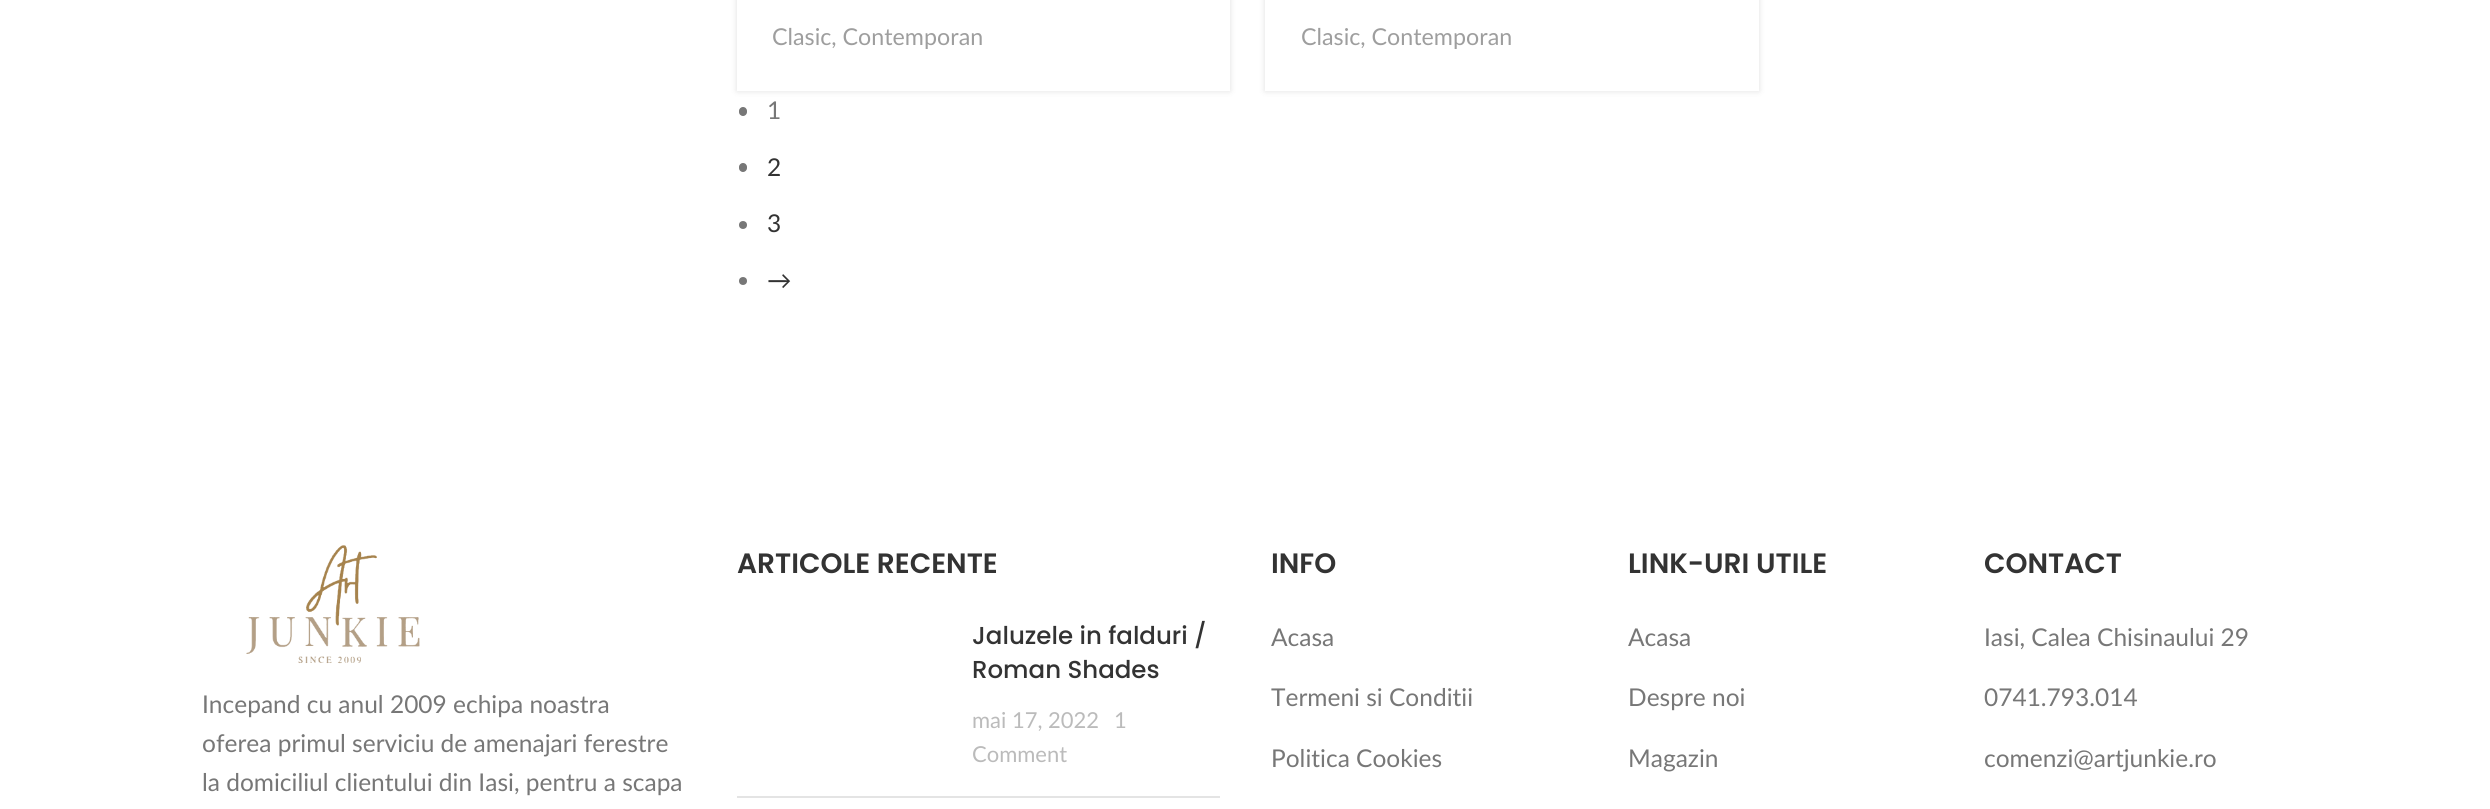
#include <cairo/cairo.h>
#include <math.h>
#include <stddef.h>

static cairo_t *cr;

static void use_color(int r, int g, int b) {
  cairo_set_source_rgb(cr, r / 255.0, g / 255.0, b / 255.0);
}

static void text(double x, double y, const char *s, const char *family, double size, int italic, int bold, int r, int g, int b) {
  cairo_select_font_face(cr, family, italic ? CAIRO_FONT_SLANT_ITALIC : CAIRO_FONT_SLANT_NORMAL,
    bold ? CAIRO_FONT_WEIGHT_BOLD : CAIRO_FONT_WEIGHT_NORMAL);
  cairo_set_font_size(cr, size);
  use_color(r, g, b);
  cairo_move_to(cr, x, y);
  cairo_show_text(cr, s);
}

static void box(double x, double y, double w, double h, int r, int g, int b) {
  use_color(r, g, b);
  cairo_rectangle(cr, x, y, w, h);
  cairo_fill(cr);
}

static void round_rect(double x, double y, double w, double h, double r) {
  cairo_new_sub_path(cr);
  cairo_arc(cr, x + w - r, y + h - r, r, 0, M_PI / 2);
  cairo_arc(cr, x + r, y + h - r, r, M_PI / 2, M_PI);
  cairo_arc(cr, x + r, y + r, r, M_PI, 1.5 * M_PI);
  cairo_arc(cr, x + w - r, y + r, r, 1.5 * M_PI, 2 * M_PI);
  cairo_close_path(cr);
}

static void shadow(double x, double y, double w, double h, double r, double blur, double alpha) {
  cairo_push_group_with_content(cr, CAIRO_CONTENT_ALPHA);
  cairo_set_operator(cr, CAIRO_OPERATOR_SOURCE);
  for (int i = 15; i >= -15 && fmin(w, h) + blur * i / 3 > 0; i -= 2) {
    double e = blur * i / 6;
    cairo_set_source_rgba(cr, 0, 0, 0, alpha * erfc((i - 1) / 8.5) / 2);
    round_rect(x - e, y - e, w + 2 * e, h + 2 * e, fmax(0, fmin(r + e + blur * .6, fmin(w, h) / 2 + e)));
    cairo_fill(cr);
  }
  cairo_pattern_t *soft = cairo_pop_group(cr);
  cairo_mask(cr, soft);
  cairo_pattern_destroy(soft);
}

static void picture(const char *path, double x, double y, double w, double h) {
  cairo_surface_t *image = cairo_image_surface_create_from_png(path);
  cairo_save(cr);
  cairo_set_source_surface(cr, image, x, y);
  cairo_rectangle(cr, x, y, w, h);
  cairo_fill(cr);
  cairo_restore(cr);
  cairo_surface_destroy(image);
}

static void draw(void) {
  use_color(255, 255, 255);
  cairo_paint(cr);
  cairo_save(cr);
  cairo_set_fill_rule(cr, CAIRO_FILL_RULE_EVEN_ODD);
  cairo_new_path(cr);
  cairo_move_to(cr, 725, 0);
  cairo_line_to(cr, 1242, 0);
  cairo_line_to(cr, 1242, 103);
  cairo_line_to(cr, 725, 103);
  cairo_close_path(cr);
  cairo_move_to(cr, 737, -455);
  cairo_line_to(cr, 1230, -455);
  cairo_line_to(cr, 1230, 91);
  cairo_line_to(cr, 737, 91);
  cairo_close_path(cr);
  cairo_clip(cr);
  use_color(0, 0, 0);
  shadow(737, -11, 493, 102, 0, 3.5, 0.12);
  cairo_restore(cr);
  use_color(0, 0, 0);
  shadow(1265, -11, 494, 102, 0, 3.5, 0.12);
  box(1265, 0, 494, 91, 255, 255, 255);
  use_color(119, 119, 119);
  round_rect(739, 107, 8, 9, 4);
  cairo_fill(cr);
  round_rect(739, 163, 8, 9, 4);
  cairo_fill(cr);
  cairo_arc(cr, 743, 225, 4, 0, 2 * M_PI);
  cairo_fill(cr);
  cairo_arc(cr, 743, 281, 4, 0, 2 * M_PI);
  cairo_fill(cr);
  picture("img_01.png", 246, 545, 174, 119);
  box(737, 796, 483, 2, 228, 228, 228);
  text(772, 45, "Clasic, Contemporan", "Lato", 23.25, 0, 0, 158, 158, 158);
  text(1301, 45, "Clasic, Contemporan", "Lato", 23.25, 0, 0, 158, 158, 158);
  text(767, 119, "1", "Lato", 24.5, 0, 0, 119, 119, 119);
  text(767, 176, "2", "Lato", 24.5, 0, 0, 51, 51, 51);
  text(767, 232, "3", "Lato", 24.5, 0, 0, 51, 51, 51);
  text(767, 289, "→", "Lato", 24.5, 0, 0, 51, 51, 51);
  text(202, 713, "Incepand cu anul 2009 echipa noastra", "Lato", 24.5, 0, 0, 119, 119, 119);
  text(202, 752, "oferea primul serviciu de amenajari ferestre", "Lato", 24.5, 0, 0, 119, 119, 119);
  text(202, 791, "la domiciliul clientului din Iasi, pentru a scapa", "Lato", 24.5, 0, 0, 119, 119, 119);
  text(737, 573, "ARTICOLE RECENTE", "Poppins SemiBold", 28, 0, 0, 51, 51, 51);
  text(972, 644, "Jaluzele in falduri /", "Poppins Medium", 24.5, 0, 0, 51, 51, 51);
  text(972, 678, "Roman Shades", "Poppins Medium", 24.5, 0, 0, 51, 51, 51);
  text(972, 728, "mai 17, 2022", "Lato", 22, 0, 0, 187, 187, 187);
  text(1114, 728, "1", "Lato", 22, 0, 0, 187, 187, 187);
  text(972, 762, "Comment", "Lato", 22, 0, 0, 187, 187, 187);
  text(1271, 573, "INFO", "Poppins SemiBold", 28, 0, 0, 51, 51, 51);
  text(1271, 646, "Acasa", "Lato", 24.5, 0, 0, 119, 119, 119);
  text(1271, 706, "Termeni si Conditii", "Lato", 24.5, 0, 0, 119, 119, 119);
  text(1271, 767, "Politica Cookies", "Lato", 24.5, 0, 0, 119, 119, 119);
  text(1628, 573, "LINK-URI UTILE", "Poppins SemiBold", 28, 0, 0, 51, 51, 51);
  text(1628, 646, "Acasa", "Lato", 24.5, 0, 0, 119, 119, 119);
  text(1628, 706, "Despre noi", "Lato", 24.5, 0, 0, 119, 119, 119);
  text(1628, 767, "Magazin", "Lato", 24.5, 0, 0, 119, 119, 119);
  text(1984, 573, "CONTACT", "Poppins SemiBold", 28, 0, 0, 51, 51, 51);
  text(1984, 646, "Iasi, Calea Chisinaului 29", "Lato", 24.5, 0, 0, 119, 119, 119);
  text(1984, 706, "0741.793.014", "Lato", 24.5, 0, 0, 119, 119, 119);
  text(1984, 767, "comenzi@artjunkie.ro", "Lato", 24.5, 0, 0, 119, 119, 119);
}

int main(void) {
  cairo_surface_t *surface = cairo_image_surface_create(CAIRO_FORMAT_RGB24, 2490, 809);
  cr = cairo_create(surface);
  cairo_font_options_t *options = cairo_font_options_create();
  cairo_font_options_set_hint_metrics(options, CAIRO_HINT_METRICS_OFF);
  cairo_font_options_set_hint_style(options, CAIRO_HINT_STYLE_NONE);
  cairo_set_font_options(cr, options);
  cairo_set_miter_limit(cr, 4);
  draw();
  cairo_surface_write_to_png(surface, "out.png");
  cairo_font_options_destroy(options);
  cairo_destroy(cr);
  cairo_surface_destroy(surface);
  return 0;
}
